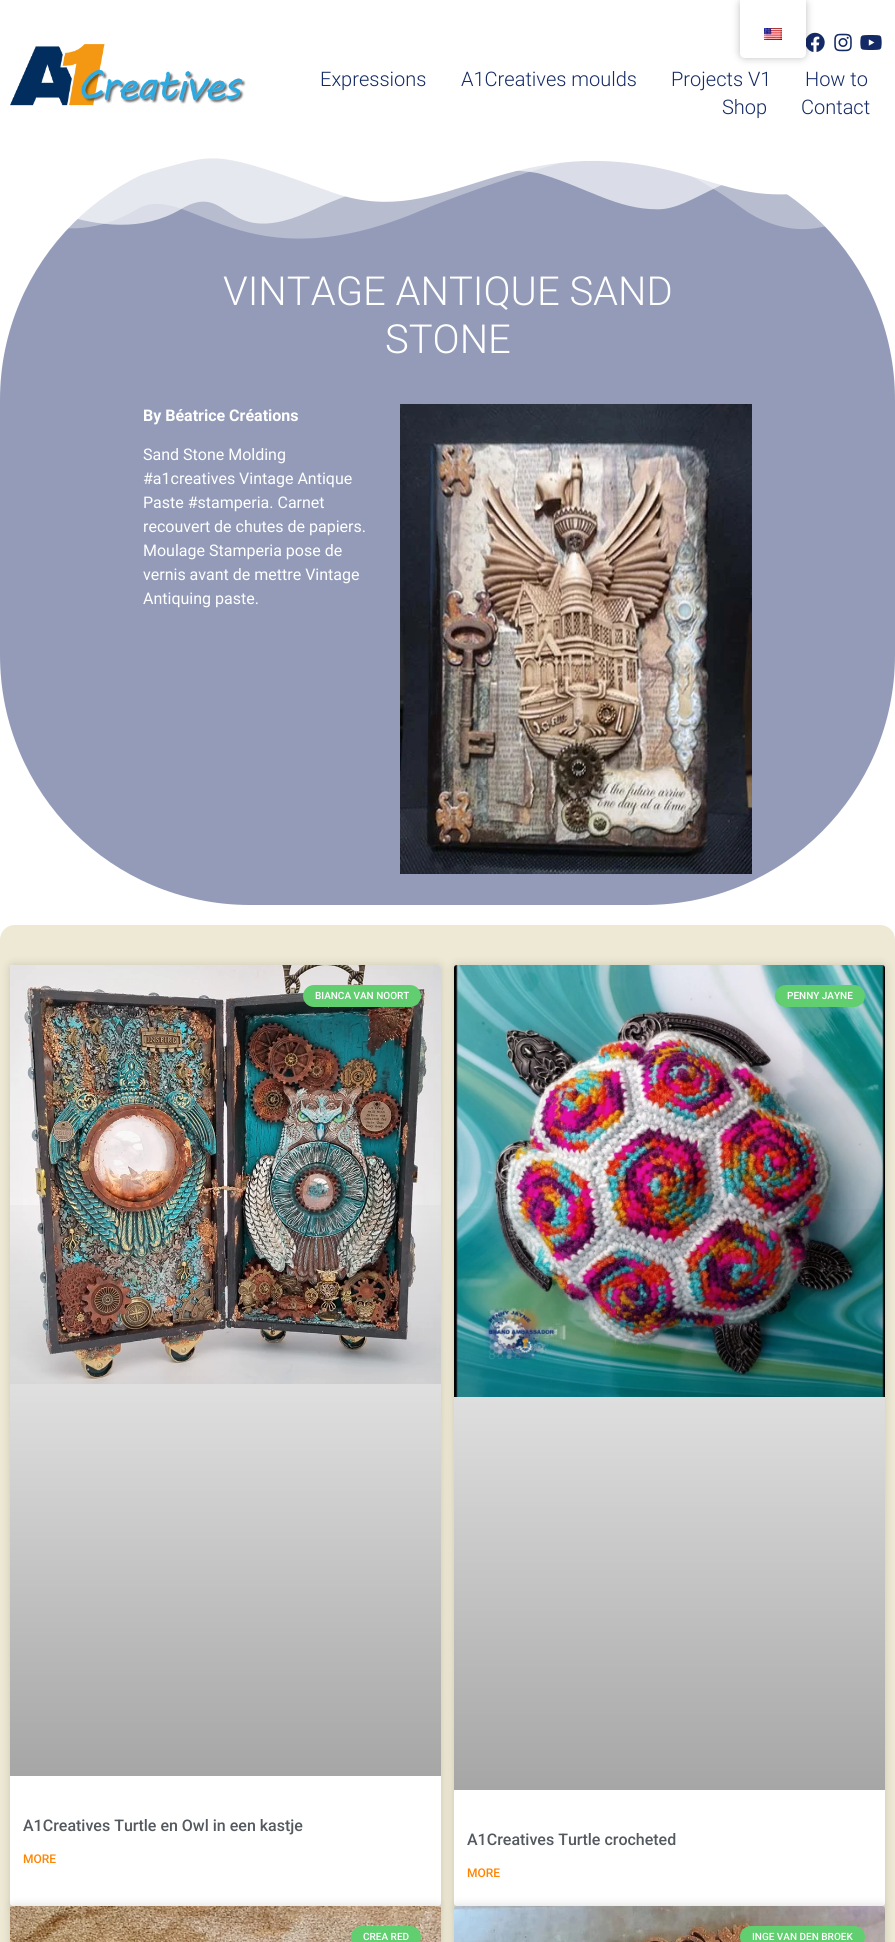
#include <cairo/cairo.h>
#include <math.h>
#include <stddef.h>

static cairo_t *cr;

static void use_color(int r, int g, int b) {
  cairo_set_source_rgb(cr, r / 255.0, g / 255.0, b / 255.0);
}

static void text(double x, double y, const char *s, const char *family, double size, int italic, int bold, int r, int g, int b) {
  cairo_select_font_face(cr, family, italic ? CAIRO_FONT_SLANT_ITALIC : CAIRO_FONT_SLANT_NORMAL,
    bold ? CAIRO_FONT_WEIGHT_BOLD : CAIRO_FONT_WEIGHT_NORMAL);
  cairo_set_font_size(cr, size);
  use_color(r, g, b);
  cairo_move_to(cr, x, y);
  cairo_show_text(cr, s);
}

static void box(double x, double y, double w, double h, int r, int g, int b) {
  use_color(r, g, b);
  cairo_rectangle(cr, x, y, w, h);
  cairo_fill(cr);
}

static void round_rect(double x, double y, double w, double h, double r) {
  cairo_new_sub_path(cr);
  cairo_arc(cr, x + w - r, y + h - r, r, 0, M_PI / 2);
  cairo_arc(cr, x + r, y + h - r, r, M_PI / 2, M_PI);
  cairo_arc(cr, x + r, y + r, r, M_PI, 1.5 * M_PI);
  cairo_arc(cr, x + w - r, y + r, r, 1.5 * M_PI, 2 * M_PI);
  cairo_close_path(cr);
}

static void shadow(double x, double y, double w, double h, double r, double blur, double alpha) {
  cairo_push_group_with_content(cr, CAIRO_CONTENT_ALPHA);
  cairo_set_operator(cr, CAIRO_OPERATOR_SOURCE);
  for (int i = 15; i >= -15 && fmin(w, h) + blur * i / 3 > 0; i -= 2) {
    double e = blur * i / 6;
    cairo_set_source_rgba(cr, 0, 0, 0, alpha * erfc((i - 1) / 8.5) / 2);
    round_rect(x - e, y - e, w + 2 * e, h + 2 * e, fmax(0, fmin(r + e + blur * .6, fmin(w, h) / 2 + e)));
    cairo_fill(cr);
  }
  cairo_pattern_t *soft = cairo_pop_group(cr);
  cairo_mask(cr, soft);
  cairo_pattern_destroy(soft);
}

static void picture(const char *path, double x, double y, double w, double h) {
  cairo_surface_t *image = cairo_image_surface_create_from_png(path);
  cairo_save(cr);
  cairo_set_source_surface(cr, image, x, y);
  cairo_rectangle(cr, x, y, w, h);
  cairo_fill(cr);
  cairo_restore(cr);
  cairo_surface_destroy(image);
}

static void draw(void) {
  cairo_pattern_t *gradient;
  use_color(255, 255, 255);
  cairo_paint(cr);
  cairo_save(cr);
  cairo_rectangle(cr, 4, 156, 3, 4);
  cairo_clip(cr);
  use_color(0, 0, 0);
  shadow(11, 28, 873, 128, 0, 5, 0.47);
  cairo_restore(cr);
  picture("img_03.png", 806, 32, 19, 20);
  use_color(0, 0, 0);
  shadow(740, 0, 66, 58, 5, 4, 0.25);
  use_color(255, 255, 255);
  cairo_new_path(cr);
  cairo_move_to(cr, 740, 0);
  cairo_line_to(cr, 806, 0);
  cairo_line_to(cr, 806, 53);
  cairo_curve_to(cr, 806, 56, 804, 58, 801, 58);
  cairo_line_to(cr, 745, 58);
  cairo_curve_to(cr, 742, 58, 740, 56, 740, 53);
  cairo_close_path(cr);
  cairo_fill(cr);
  picture("img_01.png", 764, 28, 18, 12);
  picture("img_02.png", 10, 44, 236, 62);
  picture("img_04.png", 834, 33, 18, 19);
  picture("img_05.png", 860, 35, 22, 15);
  use_color(147, 155, 184);
  round_rect(0, 150, 895, 755, 250);
  cairo_fill(cr);
  picture("img_06.png", 2, 150, 891, 89);
  picture("img_07.png", 400, 404, 352, 470);
  use_color(238, 233, 212);
  cairo_new_path(cr);
  cairo_move_to(cr, 15, 925);
  cairo_line_to(cr, 880, 925);
  cairo_curve_to(cr, 888.5, 925, 895, 931.5, 895, 940);
  cairo_line_to(cr, 895, 955);
  cairo_line_to(cr, 0, 955);
  cairo_line_to(cr, 0, 940);
  cairo_curve_to(cr, 0, 931.5, 6.5, 925, 15, 925);
  cairo_close_path(cr);
  cairo_fill(cr);
  box(0, 955, 895, 987, 238, 233, 212);
  use_color(0, 0, 0);
  shadow(10, 965, 431, 941, 3, 5, 0.15);
  use_color(255, 255, 255);
  round_rect(10, 965, 431, 941, 3);
  cairo_fill(cr);
  picture("img_08.png", 10, 965, 431, 419);
  gradient = cairo_pattern_create_linear(226, 1776, 226, 965);
  cairo_pattern_add_color_stop_rgba(gradient, 0, 0, 0, 0, 0.35);
  cairo_pattern_add_color_stop_rgba(gradient, 0.75, 0, 0, 0, 0);
  cairo_set_source(cr, gradient);
  cairo_pattern_destroy(gradient);
  cairo_rectangle(cr, 10, 1205, 431, 571);
  cairo_fill(cr);
  use_color(97, 206, 112);
  round_rect(303, 985, 118, 22, 11);
  cairo_fill(cr);
  use_color(0, 0, 0);
  shadow(454, 965, 431, 941, 3, 5, 0.15);
  use_color(255, 255, 255);
  round_rect(454, 965, 431, 941, 3);
  cairo_fill(cr);
  picture("img_09.png", 454, 965, 431, 432);
  gradient = cairo_pattern_create_linear(670, 1790, 670, 965);
  cairo_pattern_add_color_stop_rgba(gradient, 0, 0, 0, 0, 0.35);
  cairo_pattern_add_color_stop_rgba(gradient, 0.75, 0, 0, 0, 0);
  cairo_set_source(cr, gradient);
  cairo_pattern_destroy(gradient);
  cairo_rectangle(cr, 454, 1209, 431, 581);
  cairo_fill(cr);
  use_color(97, 206, 112);
  round_rect(775, 985, 90, 22, 11);
  cairo_fill(cr);
  use_color(0, 0, 0);
  shadow(10, 1906, 431, 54, 3, 5, 0.15);
  picture("img_10.png", 10, 1906, 431, 36);
  use_color(97, 206, 112);
  round_rect(351, 1926, 70, 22, 11);
  cairo_fill(cr);
  use_color(0, 0, 0);
  shadow(454, 1906, 431, 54, 3, 5, 0.15);
  picture("img_11.png", 454, 1906, 431, 36);
  use_color(97, 206, 112);
  round_rect(740, 1926, 125, 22, 11);
  cairo_fill(cr);
  text(320, 86, "Expressions", "Roboto Light", 20, 0, 0, 20, 42, 102);
  text(461, 86, "A1Creatives moulds", "Roboto Light", 20, 0, 0, 20, 42, 102);
  text(671, 86, "Projects V1", "Roboto Light", 20, 0, 0, 20, 42, 102);
  text(805, 86, "How to", "Roboto Light", 20, 0, 0, 20, 42, 102);
  text(722, 114, "Shop", "Roboto Light", 20, 0, 0, 20, 42, 102);
  text(801, 114, "Contact", "Roboto Light", 20, 0, 0, 20, 42, 102);
  text(223, 305, "VINTAGE ANTIQUE SAND", "Roboto Light", 40, 0, 0, 255, 255, 255);
  text(385, 353, "STONE", "Roboto Light", 40, 0, 0, 255, 255, 255);
  text(143, 421, "By Béatrice Créations", "Roboto", 16, 0, 1, 255, 255, 255);
  text(143, 460, "Sand Stone Molding", "Roboto", 16, 0, 0, 255, 255, 255);
  text(143, 484, "#a1creatives Vintage Antique", "Roboto", 16, 0, 0, 255, 255, 255);
  text(143, 508, "Paste #stamperia. Carnet", "Roboto", 16, 0, 0, 255, 255, 255);
  text(143, 532, "recouvert de chutes de papiers.", "Roboto", 16, 0, 0, 255, 255, 255);
  text(143, 556, "Moulage Stamperia pose de", "Roboto", 16, 0, 0, 255, 255, 255);
  text(143, 580, "vernis avant de mettre Vintage", "Roboto", 16, 0, 0, 255, 255, 255);
  text(143, 604, "Antiquing paste.", "Roboto", 16, 0, 0, 255, 255, 255);
  text(315, 999, "BIANCA VAN NOORT", "Roboto Medium", 10, 0, 0, 255, 255, 255);
  text(23, 1831, "A1Creatives Turtle en Owl in een kastje", "Roboto Medium", 16, 0, 0, 84, 89, 95);
  text(23, 1863, "MORE", "Roboto Medium", 12, 0, 0, 255, 132, 1);
  text(787, 999, "PENNY JAYNE", "Roboto Medium", 10, 0, 0, 255, 255, 255);
  text(467, 1845, "A1Creatives Turtle crocheted", "Roboto Medium", 16, 0, 0, 84, 89, 95);
  text(467, 1877, "MORE", "Roboto Medium", 12, 0, 0, 255, 132, 1);
  text(363, 1940, "CREA RED", "Roboto Medium", 10, 0, 0, 255, 255, 255);
  text(752, 1940, "INGE VAN DEN BROEK", "Roboto Medium", 10, 0, 0, 255, 255, 255);
}

int main(void) {
  cairo_surface_t *surface = cairo_image_surface_create(CAIRO_FORMAT_RGB24, 895, 1942);
  cr = cairo_create(surface);
  cairo_font_options_t *options = cairo_font_options_create();
  cairo_font_options_set_hint_metrics(options, CAIRO_HINT_METRICS_OFF);
  cairo_font_options_set_hint_style(options, CAIRO_HINT_STYLE_NONE);
  cairo_set_font_options(cr, options);
  cairo_set_miter_limit(cr, 4);
  draw();
  cairo_surface_write_to_png(surface, "out.png");
  cairo_font_options_destroy(options);
  cairo_destroy(cr);
  cairo_surface_destroy(surface);
  return 0;
}
